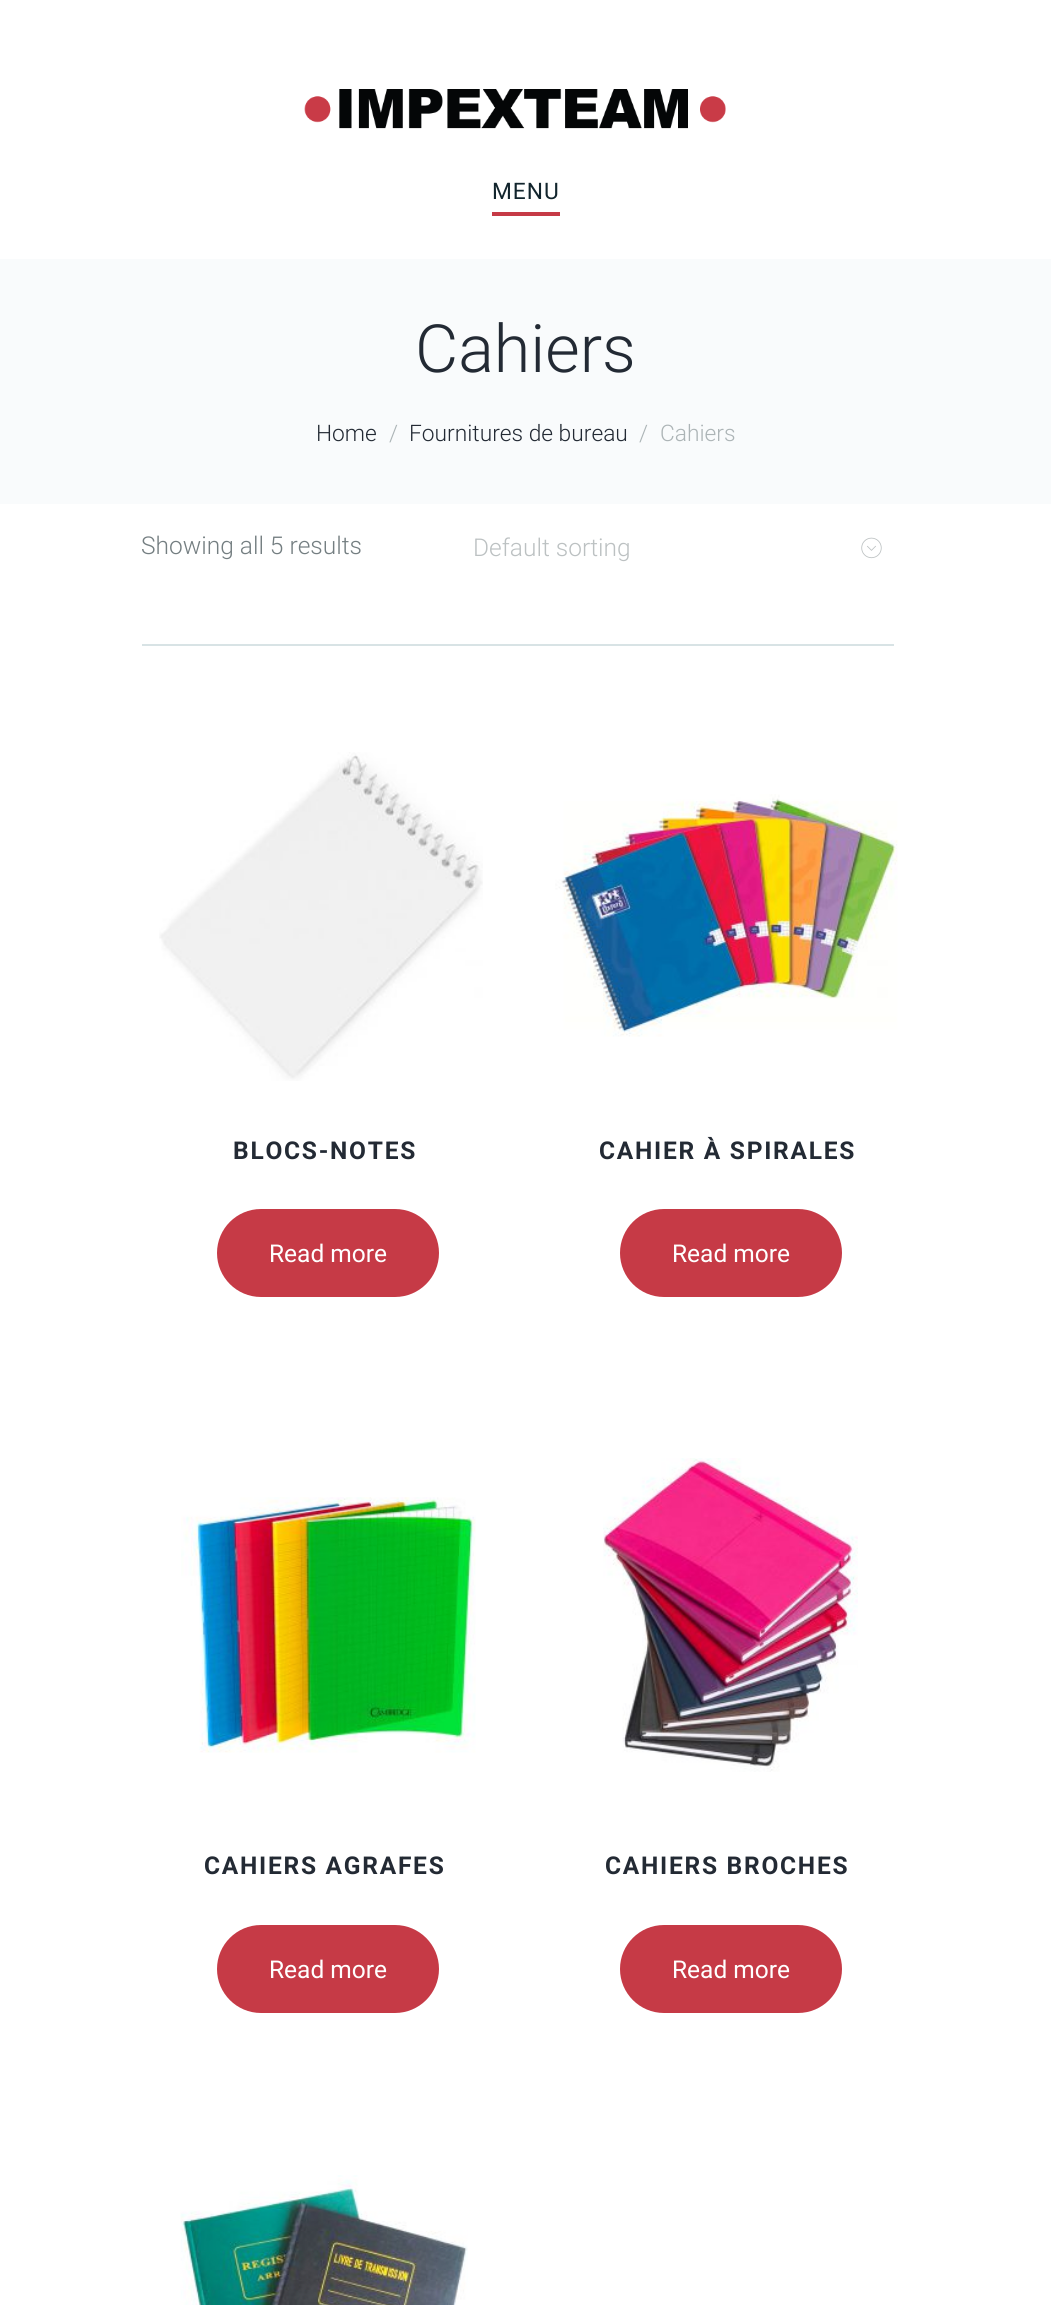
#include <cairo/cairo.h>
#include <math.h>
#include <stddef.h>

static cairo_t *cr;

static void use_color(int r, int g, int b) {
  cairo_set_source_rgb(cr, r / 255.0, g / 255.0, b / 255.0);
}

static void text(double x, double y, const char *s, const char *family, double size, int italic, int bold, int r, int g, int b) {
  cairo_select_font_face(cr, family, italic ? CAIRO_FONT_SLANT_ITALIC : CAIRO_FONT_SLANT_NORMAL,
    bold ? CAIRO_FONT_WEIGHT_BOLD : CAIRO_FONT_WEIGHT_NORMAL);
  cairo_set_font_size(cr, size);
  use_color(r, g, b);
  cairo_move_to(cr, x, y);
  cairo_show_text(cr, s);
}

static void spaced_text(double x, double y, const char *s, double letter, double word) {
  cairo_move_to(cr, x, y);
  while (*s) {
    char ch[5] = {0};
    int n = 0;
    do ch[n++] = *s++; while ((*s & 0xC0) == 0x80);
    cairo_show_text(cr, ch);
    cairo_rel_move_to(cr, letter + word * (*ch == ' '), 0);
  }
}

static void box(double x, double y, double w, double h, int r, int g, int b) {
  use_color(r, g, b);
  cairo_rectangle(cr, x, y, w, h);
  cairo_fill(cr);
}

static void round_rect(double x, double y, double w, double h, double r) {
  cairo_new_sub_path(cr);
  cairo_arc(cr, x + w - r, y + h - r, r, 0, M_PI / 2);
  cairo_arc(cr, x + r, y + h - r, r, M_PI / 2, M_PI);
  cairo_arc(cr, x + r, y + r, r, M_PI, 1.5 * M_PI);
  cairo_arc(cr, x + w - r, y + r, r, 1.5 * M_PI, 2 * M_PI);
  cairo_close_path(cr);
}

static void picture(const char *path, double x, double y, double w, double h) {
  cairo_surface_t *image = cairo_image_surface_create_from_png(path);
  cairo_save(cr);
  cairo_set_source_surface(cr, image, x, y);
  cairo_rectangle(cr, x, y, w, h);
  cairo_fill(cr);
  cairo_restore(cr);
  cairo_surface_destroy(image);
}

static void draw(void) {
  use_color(255, 255, 255);
  cairo_paint(cr);
  picture("img_01.png", 304, 89, 422, 40);
  box(492, 212, 68, 4, 198, 58, 70);
  box(0, 259, 1051, 245, 249, 251, 252);
  picture("img_02.png", 861, 537, 21, 22);
  box(142, 644, 752, 2, 216, 227, 229);
  picture("img_03.png", 159, 752, 324, 329);
  use_color(198, 58, 70);
  round_rect(217, 1209, 222, 88, 44);
  cairo_fill(cr);
  picture("img_04.png", 555, 794, 343, 243);
  round_rect(620, 1209, 222, 88, 44);
  cairo_fill(cr);
  picture("img_05.png", 181, 1497, 295, 256);
  round_rect(217, 1925, 222, 88, 44);
  cairo_fill(cr);
  picture("img_06.png", 603, 1458, 255, 314);
  round_rect(620, 1925, 222, 88, 44);
  cairo_fill(cr);
  picture("img_07.png", 180, 2175, 288, 130);
  cairo_select_font_face(cr, "Roboto", CAIRO_FONT_SLANT_NORMAL, CAIRO_FONT_WEIGHT_NORMAL);
  cairo_set_font_size(cr, 22.75);
  use_color(18, 37, 45);
  spaced_text(492, 199, "MENU", 1, 0);
  text(415, 372, "Cahiers", "Roboto Light", 66.5, 0, 0, 35, 42, 52);
  text(316, 441, "Home", "Roboto Light", 22.75, 0, 0, 35, 42, 52);
  text(389, 441, "/", "Roboto Light", 22.75, 0, 0, 172, 180, 182);
  text(409, 441, "Fournitures de bureau", "Roboto Light", 22.75, 0, 0, 35, 42, 52);
  text(639, 441, "/", "Roboto Light", 22.75, 0, 0, 172, 180, 182);
  text(660, 441, "Cahiers", "Roboto Light", 22.75, 0, 0, 172, 180, 182);
  text(141, 554, "Showing all 5 results", "Roboto Light", 24.5, 0, 0, 116, 126, 129);
  text(473, 556, "Default sorting", "Roboto Light", 24.5, 0, 0, 188, 193, 194);
  cairo_select_font_face(cr, "Roboto", CAIRO_FONT_SLANT_NORMAL, CAIRO_FONT_WEIGHT_BOLD);
  use_color(35, 42, 52);
  spaced_text(233, 1159, "BLOCS-NOTES", 1.75, 0);
  text(269, 1262, "Read more", "Roboto", 24.5, 0, 0, 255, 255, 255);
  cairo_select_font_face(cr, "Roboto", CAIRO_FONT_SLANT_NORMAL, CAIRO_FONT_WEIGHT_BOLD);
  use_color(35, 42, 52);
  spaced_text(599, 1159, "CAHIER À SPIRALES", 1.75, 0);
  text(672, 1262, "Read more", "Roboto", 24.5, 0, 0, 255, 255, 255);
  cairo_select_font_face(cr, "Roboto", CAIRO_FONT_SLANT_NORMAL, CAIRO_FONT_WEIGHT_BOLD);
  use_color(35, 42, 52);
  spaced_text(204, 1874, "CAHIERS AGRAFES", 1.75, 0);
  text(269, 1978, "Read more", "Roboto", 24.5, 0, 0, 255, 255, 255);
  cairo_select_font_face(cr, "Roboto", CAIRO_FONT_SLANT_NORMAL, CAIRO_FONT_WEIGHT_BOLD);
  use_color(35, 42, 52);
  spaced_text(605, 1874, "CAHIERS BROCHES", 1.75, 0);
  text(672, 1978, "Read more", "Roboto", 24.5, 0, 0, 255, 255, 255);
}

int main(void) {
  cairo_surface_t *surface = cairo_image_surface_create(CAIRO_FORMAT_RGB24, 1051, 2305);
  cr = cairo_create(surface);
  cairo_font_options_t *options = cairo_font_options_create();
  cairo_font_options_set_hint_metrics(options, CAIRO_HINT_METRICS_OFF);
  cairo_font_options_set_hint_style(options, CAIRO_HINT_STYLE_NONE);
  cairo_set_font_options(cr, options);
  cairo_set_miter_limit(cr, 4);
  draw();
  cairo_surface_write_to_png(surface, "out.png");
  cairo_font_options_destroy(options);
  cairo_destroy(cr);
  cairo_surface_destroy(surface);
  return 0;
}
